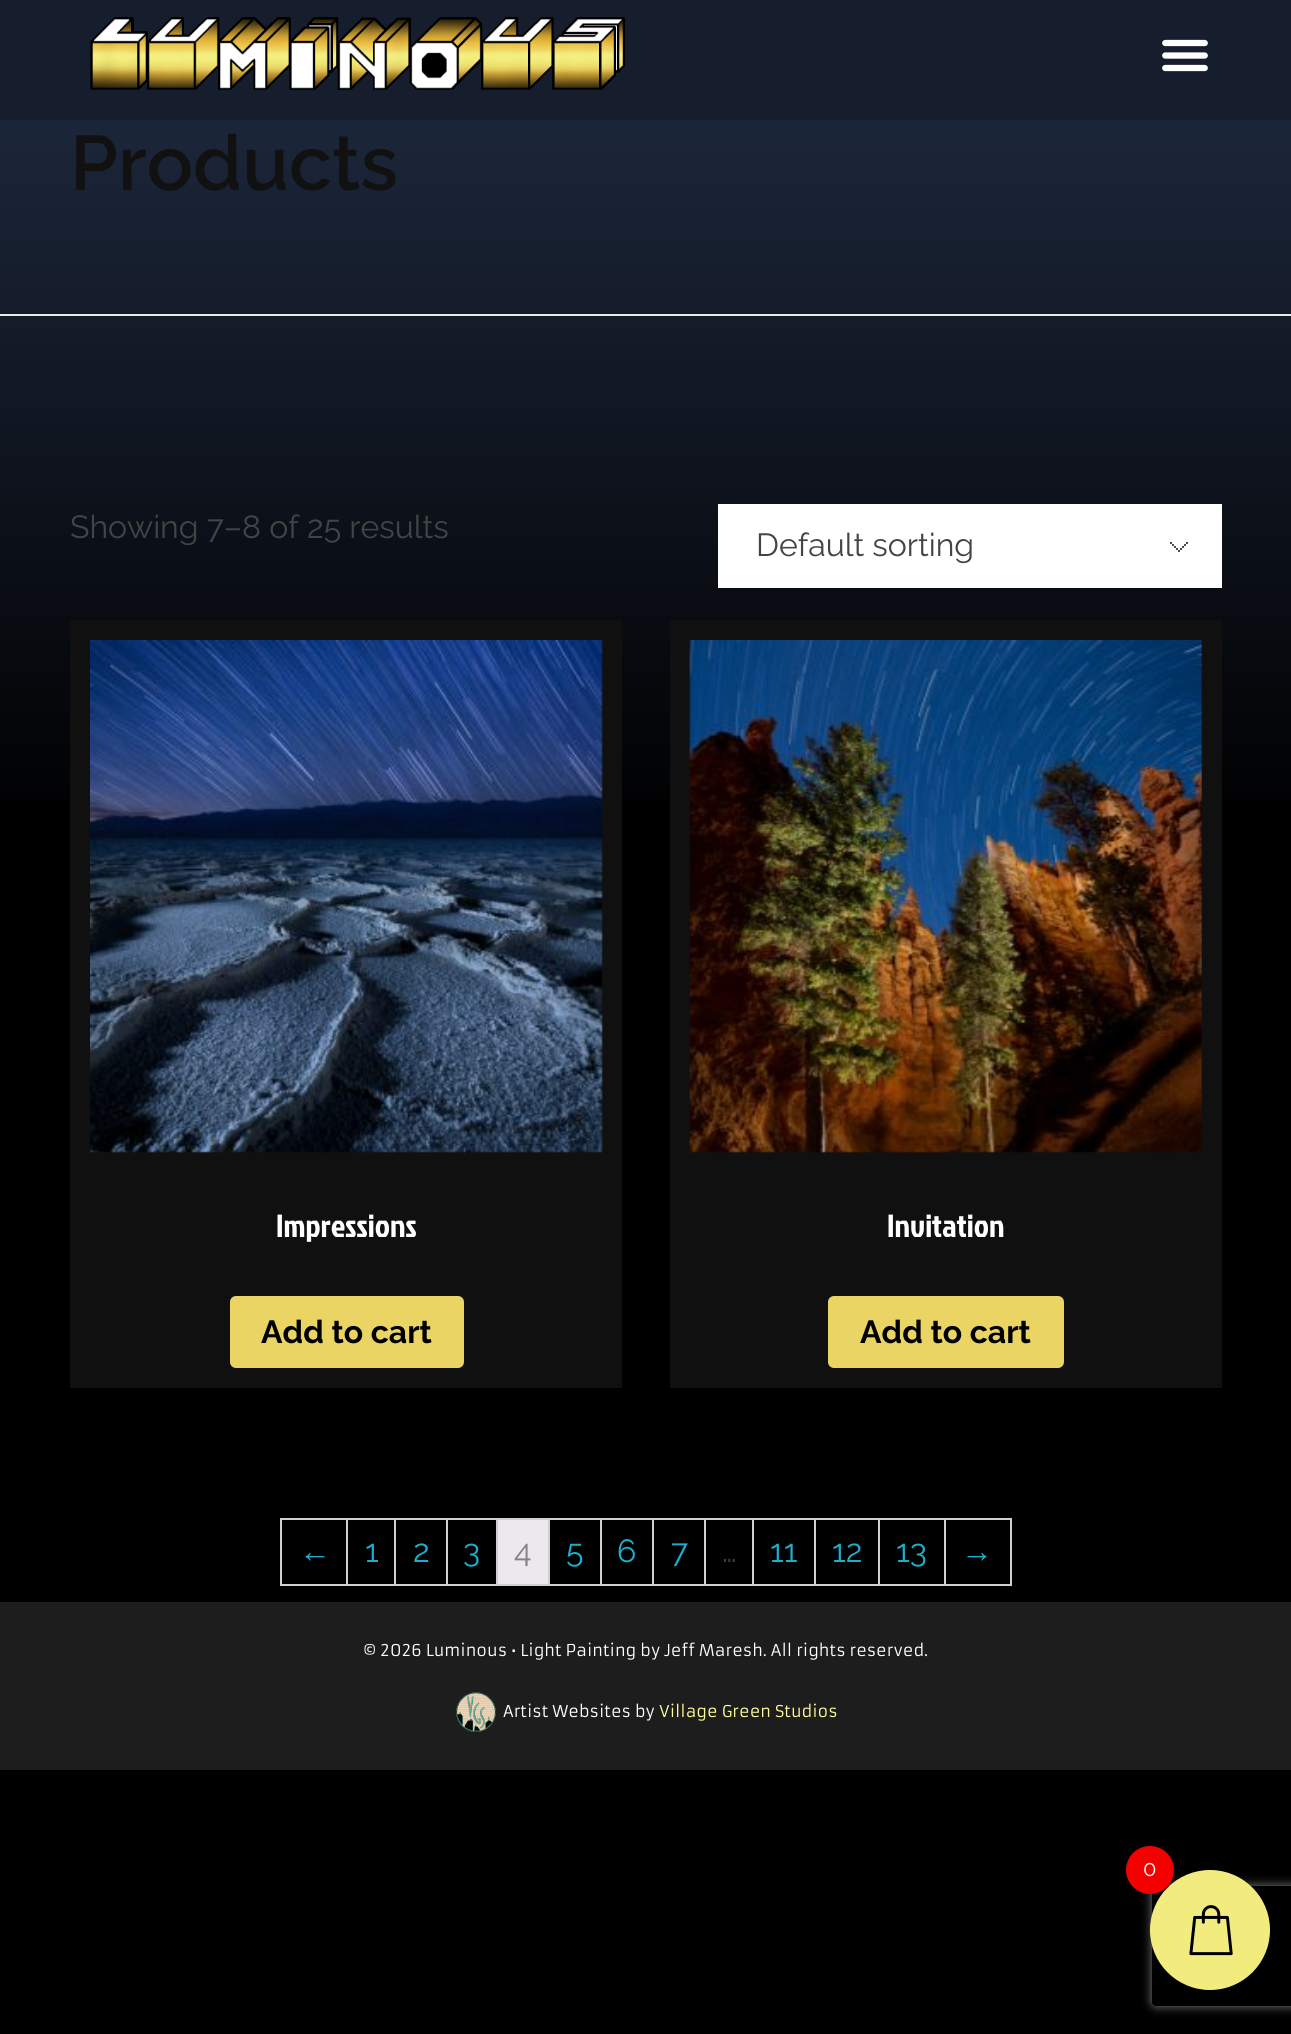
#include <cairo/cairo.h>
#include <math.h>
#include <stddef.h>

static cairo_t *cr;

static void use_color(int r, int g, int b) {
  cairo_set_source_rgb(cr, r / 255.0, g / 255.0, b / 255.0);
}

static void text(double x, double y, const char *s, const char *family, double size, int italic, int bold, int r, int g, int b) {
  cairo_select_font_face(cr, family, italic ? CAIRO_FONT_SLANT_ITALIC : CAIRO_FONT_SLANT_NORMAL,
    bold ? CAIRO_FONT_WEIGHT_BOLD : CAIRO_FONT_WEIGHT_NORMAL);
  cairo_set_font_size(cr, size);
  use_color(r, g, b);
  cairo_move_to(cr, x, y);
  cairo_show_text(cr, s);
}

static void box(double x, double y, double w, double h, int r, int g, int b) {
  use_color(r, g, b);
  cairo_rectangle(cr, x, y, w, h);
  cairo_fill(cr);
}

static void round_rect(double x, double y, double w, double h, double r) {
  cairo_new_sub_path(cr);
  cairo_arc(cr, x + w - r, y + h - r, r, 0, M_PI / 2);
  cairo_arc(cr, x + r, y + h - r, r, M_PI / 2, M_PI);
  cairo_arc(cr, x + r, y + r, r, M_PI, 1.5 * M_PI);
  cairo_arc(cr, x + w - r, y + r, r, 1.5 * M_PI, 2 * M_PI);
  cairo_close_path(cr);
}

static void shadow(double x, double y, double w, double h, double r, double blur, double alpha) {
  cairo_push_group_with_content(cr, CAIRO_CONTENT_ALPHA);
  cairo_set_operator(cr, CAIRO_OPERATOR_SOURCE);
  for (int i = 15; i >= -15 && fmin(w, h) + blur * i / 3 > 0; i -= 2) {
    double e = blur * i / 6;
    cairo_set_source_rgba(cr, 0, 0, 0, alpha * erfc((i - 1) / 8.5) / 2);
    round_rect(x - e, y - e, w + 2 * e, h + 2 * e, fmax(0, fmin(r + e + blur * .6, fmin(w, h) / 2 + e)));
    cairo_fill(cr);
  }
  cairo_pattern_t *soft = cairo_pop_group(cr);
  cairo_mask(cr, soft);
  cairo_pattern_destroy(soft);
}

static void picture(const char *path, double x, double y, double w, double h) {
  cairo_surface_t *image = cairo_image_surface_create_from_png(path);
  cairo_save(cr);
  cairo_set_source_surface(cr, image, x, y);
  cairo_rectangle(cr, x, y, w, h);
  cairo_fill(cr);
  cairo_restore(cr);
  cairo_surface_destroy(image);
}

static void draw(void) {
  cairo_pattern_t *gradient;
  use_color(0, 0, 0);
  cairo_paint(cr);
  gradient = cairo_pattern_create_linear(646, 1770, 646, 0);
  cairo_pattern_add_color_stop_rgba(gradient, 0.53, 0, 0, 0, 1);
  cairo_pattern_add_color_stop_rgba(gradient, 0.92, 0.106, 0.145, 0.22, 1);
  cairo_set_source(cr, gradient);
  cairo_pattern_destroy(gradient);
  cairo_rectangle(cr, 0, 120, 1291, 681);
  cairo_fill(cr);
  gradient = cairo_pattern_create_linear(646, 1770, 646, 0);
  cairo_pattern_add_color_stop_rgba(gradient, 0.53, 0, 0, 0, 1);
  cairo_pattern_add_color_stop_rgba(gradient, 0.92, 0.086, 0.118, 0.176, 1);
  cairo_set_source(cr, gradient);
  cairo_pattern_destroy(gradient);
  cairo_rectangle(cr, 0, 0, 1291, 120);
  cairo_fill(cr);
  picture("img_01.png", 90, 17, 535, 73);
  picture("img_02.png", 1162, 39, 46, 33);
  box(0, 314, 1291, 2, 234, 234, 234);
  box(718, 504, 504, 84, 255, 255, 255);
  picture("img_03.png", 1170, 542, 18, 10);
  box(70, 620, 552, 768, 16, 16, 16);
  picture("img_04.png", 90, 640, 513, 513);
  use_color(233, 212, 100);
  round_rect(230, 1296, 234, 72, 6);
  cairo_fill(cr);
  box(670, 620, 552, 768, 16, 16, 16);
  picture("img_05.png", 689, 640, 513, 513);
  use_color(233, 212, 100);
  round_rect(828, 1296, 236, 72, 6);
  cairo_fill(cr);
  box(280, 1518, 732, 2, 211, 206, 210);
  box(280, 1584, 732, 2, 211, 206, 210);
  box(280, 1518, 2, 68, 211, 206, 210);
  box(346, 1520, 2, 64, 211, 206, 210);
  box(394, 1520, 2, 64, 211, 206, 210);
  box(446, 1520, 2, 64, 211, 206, 210);
  box(496, 1520, 2, 64, 211, 206, 210);
  box(548, 1520, 2, 64, 211, 206, 210);
  box(498, 1520, 50, 64, 235, 233, 235);
  box(600, 1520, 2, 64, 211, 206, 210);
  box(652, 1520, 2, 64, 211, 206, 210);
  box(704, 1520, 2, 64, 211, 206, 210);
  box(752, 1520, 2, 64, 211, 206, 210);
  box(814, 1520, 2, 64, 211, 206, 210);
  box(878, 1520, 2, 64, 211, 206, 210);
  box(944, 1520, 2, 64, 211, 206, 210);
  box(1010, 1520, 2, 64, 211, 206, 210);
  box(0, 1602, 1291, 168, 29, 29, 29);
  picture("img_06.png", 456, 1692, 40, 41);
  cairo_save(cr);
  cairo_set_fill_rule(cr, CAIRO_FILL_RULE_EVEN_ODD);
  cairo_new_path(cr);
  cairo_move_to(cr, 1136, 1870);
  cairo_line_to(cr, 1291, 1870);
  cairo_line_to(cr, 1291, 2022);
  cairo_line_to(cr, 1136, 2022);
  cairo_close_path(cr);
  cairo_move_to(cr, 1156, 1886);
  cairo_line_to(cr, 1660, 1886);
  cairo_curve_to(cr, 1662, 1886, 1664, 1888, 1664, 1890);
  cairo_line_to(cr, 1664, 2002);
  cairo_curve_to(cr, 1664, 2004, 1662, 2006, 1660, 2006);
  cairo_line_to(cr, 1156, 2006);
  cairo_curve_to(cr, 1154, 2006, 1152, 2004, 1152, 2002);
  cairo_line_to(cr, 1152, 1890);
  cairo_curve_to(cr, 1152, 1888, 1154, 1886, 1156, 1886);
  cairo_close_path(cr);
  cairo_clip(cr);
  use_color(128, 128, 128);
  shadow(1152, 1886, 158, 120, 4, 5, 1);
  cairo_restore(cr);
  use_color(241, 236, 125);
  cairo_arc(cr, 1210, 1930, 60, 0, 2 * M_PI);
  cairo_fill(cr);
  use_color(244, 0, 0);
  cairo_arc(cr, 1150, 1870, 24, 0, 2 * M_PI);
  cairo_fill(cr);
  picture("img_07.png", 1189, 1905, 44, 51);
  text(70, 190, "Products", "Raleway SemiBold", 77, 0, 0, 17, 17, 17);
  text(70, 538, "Showing 7–8 of 25 results", "Raleway", 32, 0, 0, 68, 68, 68);
  text(756, 556, "Default sorting", "Raleway", 32, 0, 0, 68, 68, 68);
  text(276, 1237, "Impressions", "Jockey One", 32, 0, 0, 255, 255, 255);
  text(261, 1343, "Add to cart", "Raleway", 32, 0, 1, 0, 0, 0);
  text(887, 1237, "Invitation", "Jockey One", 32, 0, 0, 255, 255, 255);
  text(860, 1343, "Add to cart", "Raleway", 32, 0, 1, 0, 0, 0);
  text(299, 1562, "←", "Liberation Sans", 32, 0, 0, 27, 176, 206);
  text(365, 1562, "1", "Raleway", 32, 0, 0, 27, 176, 206);
  text(413, 1562, "2", "Raleway", 32, 0, 0, 27, 176, 206);
  text(463, 1562, "3", "Raleway", 32, 0, 0, 27, 176, 206);
  text(514, 1562, "4", "Raleway", 32, 0, 0, 138, 126, 136);
  text(566, 1562, "5", "Raleway", 32, 0, 0, 27, 176, 206);
  text(617, 1562, "6", "Raleway", 32, 0, 0, 27, 176, 206);
  text(671, 1562, "7", "Raleway", 32, 0, 0, 27, 176, 206);
  text(722, 1562, "…", "Raleway", 32, 0, 0, 68, 68, 68);
  text(770, 1562, "11", "Raleway", 32, 0, 0, 27, 176, 206);
  text(832, 1562, "12", "Raleway", 32, 0, 0, 27, 176, 206);
  text(896, 1562, "13", "Raleway", 32, 0, 0, 27, 176, 206);
  text(961, 1562, "→", "Liberation Sans", 32, 0, 0, 27, 176, 206);
  text(363, 1656, "© 2026 Luminous • Light Painting by Jeff Maresh. All rights reserved.", "Armata", 16, 0, 0, 255, 255, 255);
  text(503, 1717, "Artist Websites by", "Armata", 16, 0, 0, 255, 255, 255);
  text(659, 1717, "Village Green Studios", "Armata", 16, 0, 0, 255, 255, 153);
  text(1143, 1876, "0", "Raleway", 22, 0, 0, 255, 255, 255);
}

int main(void) {
  cairo_surface_t *surface = cairo_image_surface_create(CAIRO_FORMAT_RGB24, 1291, 2034);
  cr = cairo_create(surface);
  cairo_font_options_t *options = cairo_font_options_create();
  cairo_font_options_set_hint_metrics(options, CAIRO_HINT_METRICS_OFF);
  cairo_font_options_set_hint_style(options, CAIRO_HINT_STYLE_NONE);
  cairo_set_font_options(cr, options);
  cairo_set_miter_limit(cr, 4);
  draw();
  cairo_surface_write_to_png(surface, "out.png");
  cairo_font_options_destroy(options);
  cairo_destroy(cr);
  cairo_surface_destroy(surface);
  return 0;
}
